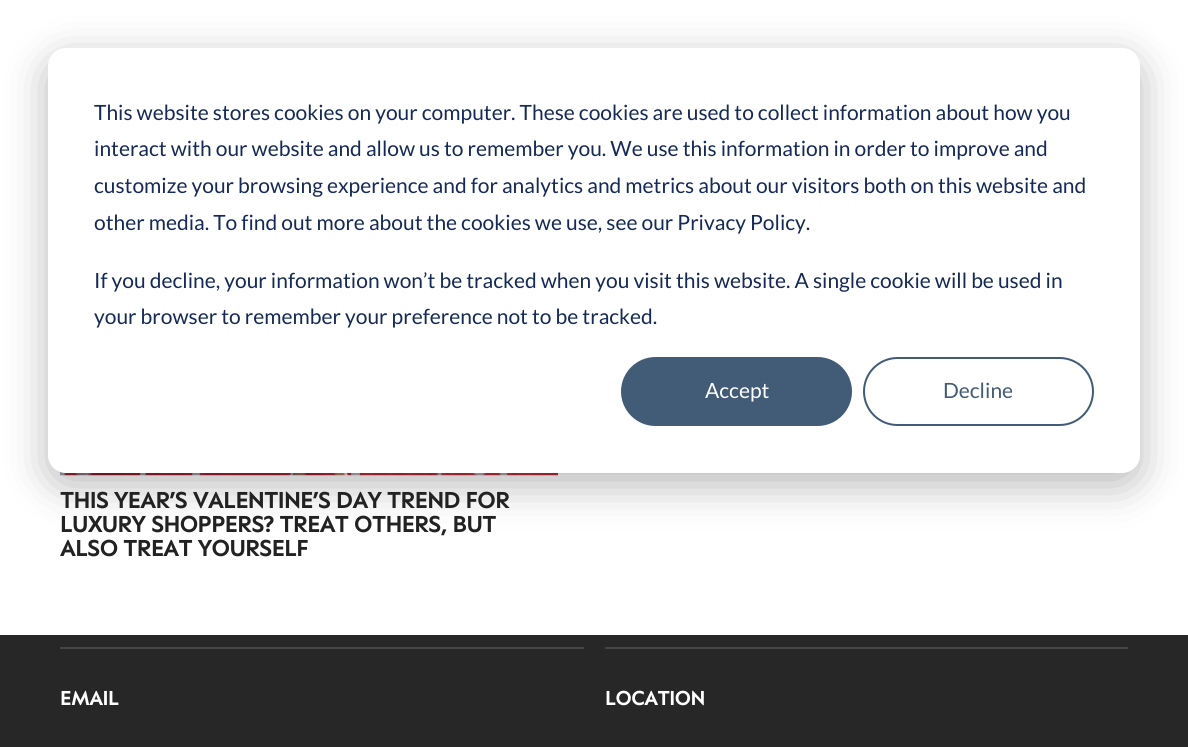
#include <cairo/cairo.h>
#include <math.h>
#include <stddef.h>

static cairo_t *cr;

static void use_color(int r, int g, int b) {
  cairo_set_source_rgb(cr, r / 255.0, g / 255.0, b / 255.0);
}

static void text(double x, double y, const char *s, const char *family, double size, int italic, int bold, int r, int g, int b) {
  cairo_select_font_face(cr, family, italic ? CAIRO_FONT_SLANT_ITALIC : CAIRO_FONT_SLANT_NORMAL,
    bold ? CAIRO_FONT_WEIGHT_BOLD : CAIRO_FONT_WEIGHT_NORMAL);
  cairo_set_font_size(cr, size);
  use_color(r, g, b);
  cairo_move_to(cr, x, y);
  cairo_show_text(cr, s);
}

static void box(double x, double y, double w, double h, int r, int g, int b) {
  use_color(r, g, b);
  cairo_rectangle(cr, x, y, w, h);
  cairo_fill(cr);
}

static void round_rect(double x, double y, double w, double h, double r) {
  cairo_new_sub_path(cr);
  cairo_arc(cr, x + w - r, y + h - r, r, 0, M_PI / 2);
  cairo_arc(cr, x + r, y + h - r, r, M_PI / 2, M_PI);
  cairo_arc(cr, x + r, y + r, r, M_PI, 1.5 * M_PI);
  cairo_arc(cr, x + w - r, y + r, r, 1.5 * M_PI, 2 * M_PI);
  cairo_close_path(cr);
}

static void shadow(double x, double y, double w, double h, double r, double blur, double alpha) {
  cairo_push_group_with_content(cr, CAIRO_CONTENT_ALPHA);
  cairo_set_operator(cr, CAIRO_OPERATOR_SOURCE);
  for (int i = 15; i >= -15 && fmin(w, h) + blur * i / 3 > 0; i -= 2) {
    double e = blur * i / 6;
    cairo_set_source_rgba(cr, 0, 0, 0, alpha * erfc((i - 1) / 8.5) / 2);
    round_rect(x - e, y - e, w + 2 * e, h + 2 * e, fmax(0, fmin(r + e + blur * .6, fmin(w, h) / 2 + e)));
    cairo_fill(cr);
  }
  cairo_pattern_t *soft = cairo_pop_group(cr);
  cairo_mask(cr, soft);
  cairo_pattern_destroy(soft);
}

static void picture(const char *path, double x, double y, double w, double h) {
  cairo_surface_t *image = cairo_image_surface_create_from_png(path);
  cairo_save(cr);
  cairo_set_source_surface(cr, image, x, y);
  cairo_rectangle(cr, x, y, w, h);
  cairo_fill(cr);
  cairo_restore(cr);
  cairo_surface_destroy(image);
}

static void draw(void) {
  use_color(39, 39, 39);
  cairo_paint(cr);
  box(0, 0, 1188, 635, 255, 255, 255);
  picture("img_01.png", 60, 472, 498, 4);
  use_color(0, 0, 0);
  shadow(48, 60, 1092, 425, 18, 21, 0.28);
  use_color(255, 255, 255);
  round_rect(48, 48, 1092, 425, 18);
  cairo_fill(cr);
  use_color(66, 91, 118);
  round_rect(622, 358, 229, 67, 33.5);
  cairo_fill_preserve(cr);
  cairo_stroke(cr);
  round_rect(864, 358, 229, 67, 33.5);
  cairo_stroke(cr);
  box(60, 647, 524, 2, 70, 69, 69);
  box(605, 647, 523, 2, 70, 69, 69);
  text(94, 120, "This website stores cookies on your computer. These cookies are used to collect information about how you", "Lato", 21, 0, 0, 21, 41, 90);
  text(94, 156, "interact with our website and allow us to remember you. We use this information in order to improve and", "Lato", 21, 0, 0, 21, 41, 90);
  text(94, 193, "customize your browsing experience and for analytics and metrics about our visitors both on this website and", "Lato", 21, 0, 0, 21, 41, 90);
  text(94, 230, "other media. To find out more about the cookies we use, see our Privacy Policy.", "Lato", 21, 0, 0, 21, 41, 90);
  text(94, 288, "If you decline, your information won’t be tracked when you visit this website. A single cookie will be used in", "Lato", 21, 0, 0, 21, 41, 90);
  text(94, 324, "your browser to remember your preference not to be tracked.", "Lato", 21, 0, 0, 21, 41, 90);
  text(705, 398, "Accept", "Lato", 21, 0, 0, 255, 255, 255);
  text(943, 398, "Decline", "Lato", 21, 0, 0, 66, 91, 118);
  text(60, 508, "THIS YEAR’S VALENTINE’S DAY TREND FOR", "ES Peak", 24, 0, 1, 34, 34, 34);
  text(60, 532, "LUXURY SHOPPERS? TREAT OTHERS, BUT", "ES Peak", 24, 0, 1, 34, 34, 34);
  text(60, 556, "ALSO TREAT YOURSELF", "ES Peak", 24, 0, 1, 34, 34, 34);
  text(60, 705, "EMAIL", "ES Peak", 21, 0, 1, 255, 255, 255);
  text(605, 705, "LOCATION", "ES Peak", 21, 0, 1, 255, 255, 255);
}

int main(void) {
  cairo_surface_t *surface = cairo_image_surface_create(CAIRO_FORMAT_RGB24, 1188, 747);
  cr = cairo_create(surface);
  cairo_font_options_t *options = cairo_font_options_create();
  cairo_font_options_set_hint_metrics(options, CAIRO_HINT_METRICS_OFF);
  cairo_font_options_set_hint_style(options, CAIRO_HINT_STYLE_NONE);
  cairo_set_font_options(cr, options);
  cairo_set_miter_limit(cr, 4);
  draw();
  cairo_surface_write_to_png(surface, "out.png");
  cairo_font_options_destroy(options);
  cairo_destroy(cr);
  cairo_surface_destroy(surface);
  return 0;
}
